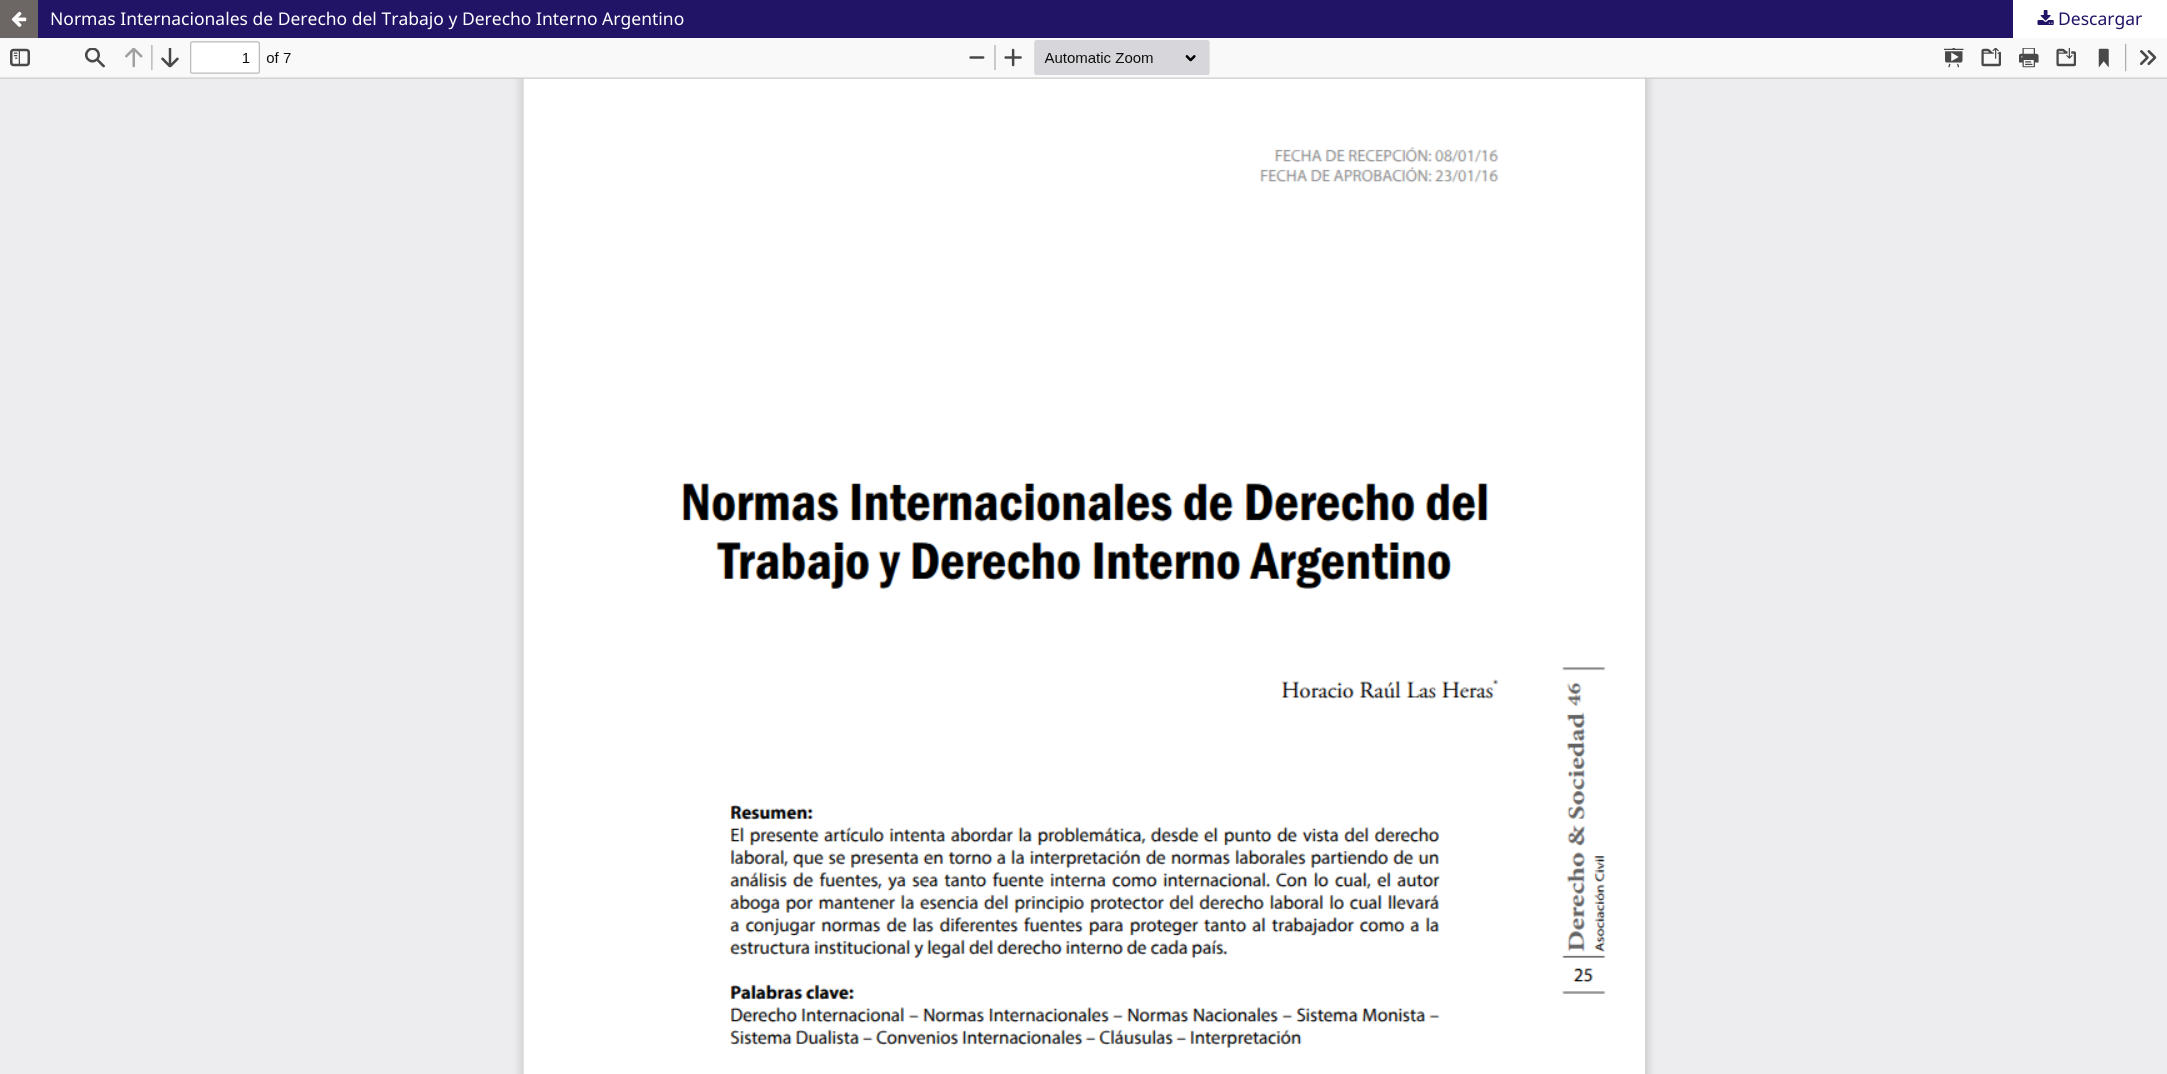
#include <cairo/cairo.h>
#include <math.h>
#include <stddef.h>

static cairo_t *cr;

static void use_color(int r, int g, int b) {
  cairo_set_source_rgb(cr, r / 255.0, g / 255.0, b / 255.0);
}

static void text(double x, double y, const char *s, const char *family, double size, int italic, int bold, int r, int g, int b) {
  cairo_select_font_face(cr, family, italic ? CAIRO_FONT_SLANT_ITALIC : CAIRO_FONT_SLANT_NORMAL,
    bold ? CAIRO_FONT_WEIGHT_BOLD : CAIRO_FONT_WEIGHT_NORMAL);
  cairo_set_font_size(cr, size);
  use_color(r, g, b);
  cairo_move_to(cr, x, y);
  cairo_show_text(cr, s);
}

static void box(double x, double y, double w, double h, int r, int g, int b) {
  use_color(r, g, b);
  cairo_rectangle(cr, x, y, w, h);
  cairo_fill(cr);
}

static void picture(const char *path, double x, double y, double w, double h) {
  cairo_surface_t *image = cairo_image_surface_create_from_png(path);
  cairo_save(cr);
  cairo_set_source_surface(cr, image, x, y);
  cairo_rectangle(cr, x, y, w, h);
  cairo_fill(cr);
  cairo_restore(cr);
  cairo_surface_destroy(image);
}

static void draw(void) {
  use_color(255, 255, 255);
  cairo_paint(cr);
  box(38, 0, 1975, 38, 33, 20, 102);
  box(0, 0, 38, 38, 108, 102, 100);
  picture("img_01.png", 11, 11, 16, 16);
  picture("img_02.png", 2037, 10, 17, 15);
  picture("img_03.png", 0, 38, 2167, 1036);
  text(50, 25, "Normas Internacionales de Derecho del Trabajo y Derecho Interno Argentino", "Noto Sans", 17.5, 0, 0, 255, 255, 255);
  text(2058, 25, "Descargar", "Noto Sans", 17.5, 0, 0, 33, 20, 102);
}

int main(void) {
  cairo_surface_t *surface = cairo_image_surface_create(CAIRO_FORMAT_RGB24, 2167, 1074);
  cr = cairo_create(surface);
  cairo_font_options_t *options = cairo_font_options_create();
  cairo_font_options_set_hint_metrics(options, CAIRO_HINT_METRICS_OFF);
  cairo_font_options_set_hint_style(options, CAIRO_HINT_STYLE_NONE);
  cairo_set_font_options(cr, options);
  cairo_set_miter_limit(cr, 4);
  draw();
  cairo_surface_write_to_png(surface, "out.png");
  cairo_font_options_destroy(options);
  cairo_destroy(cr);
  cairo_surface_destroy(surface);
  return 0;
}
